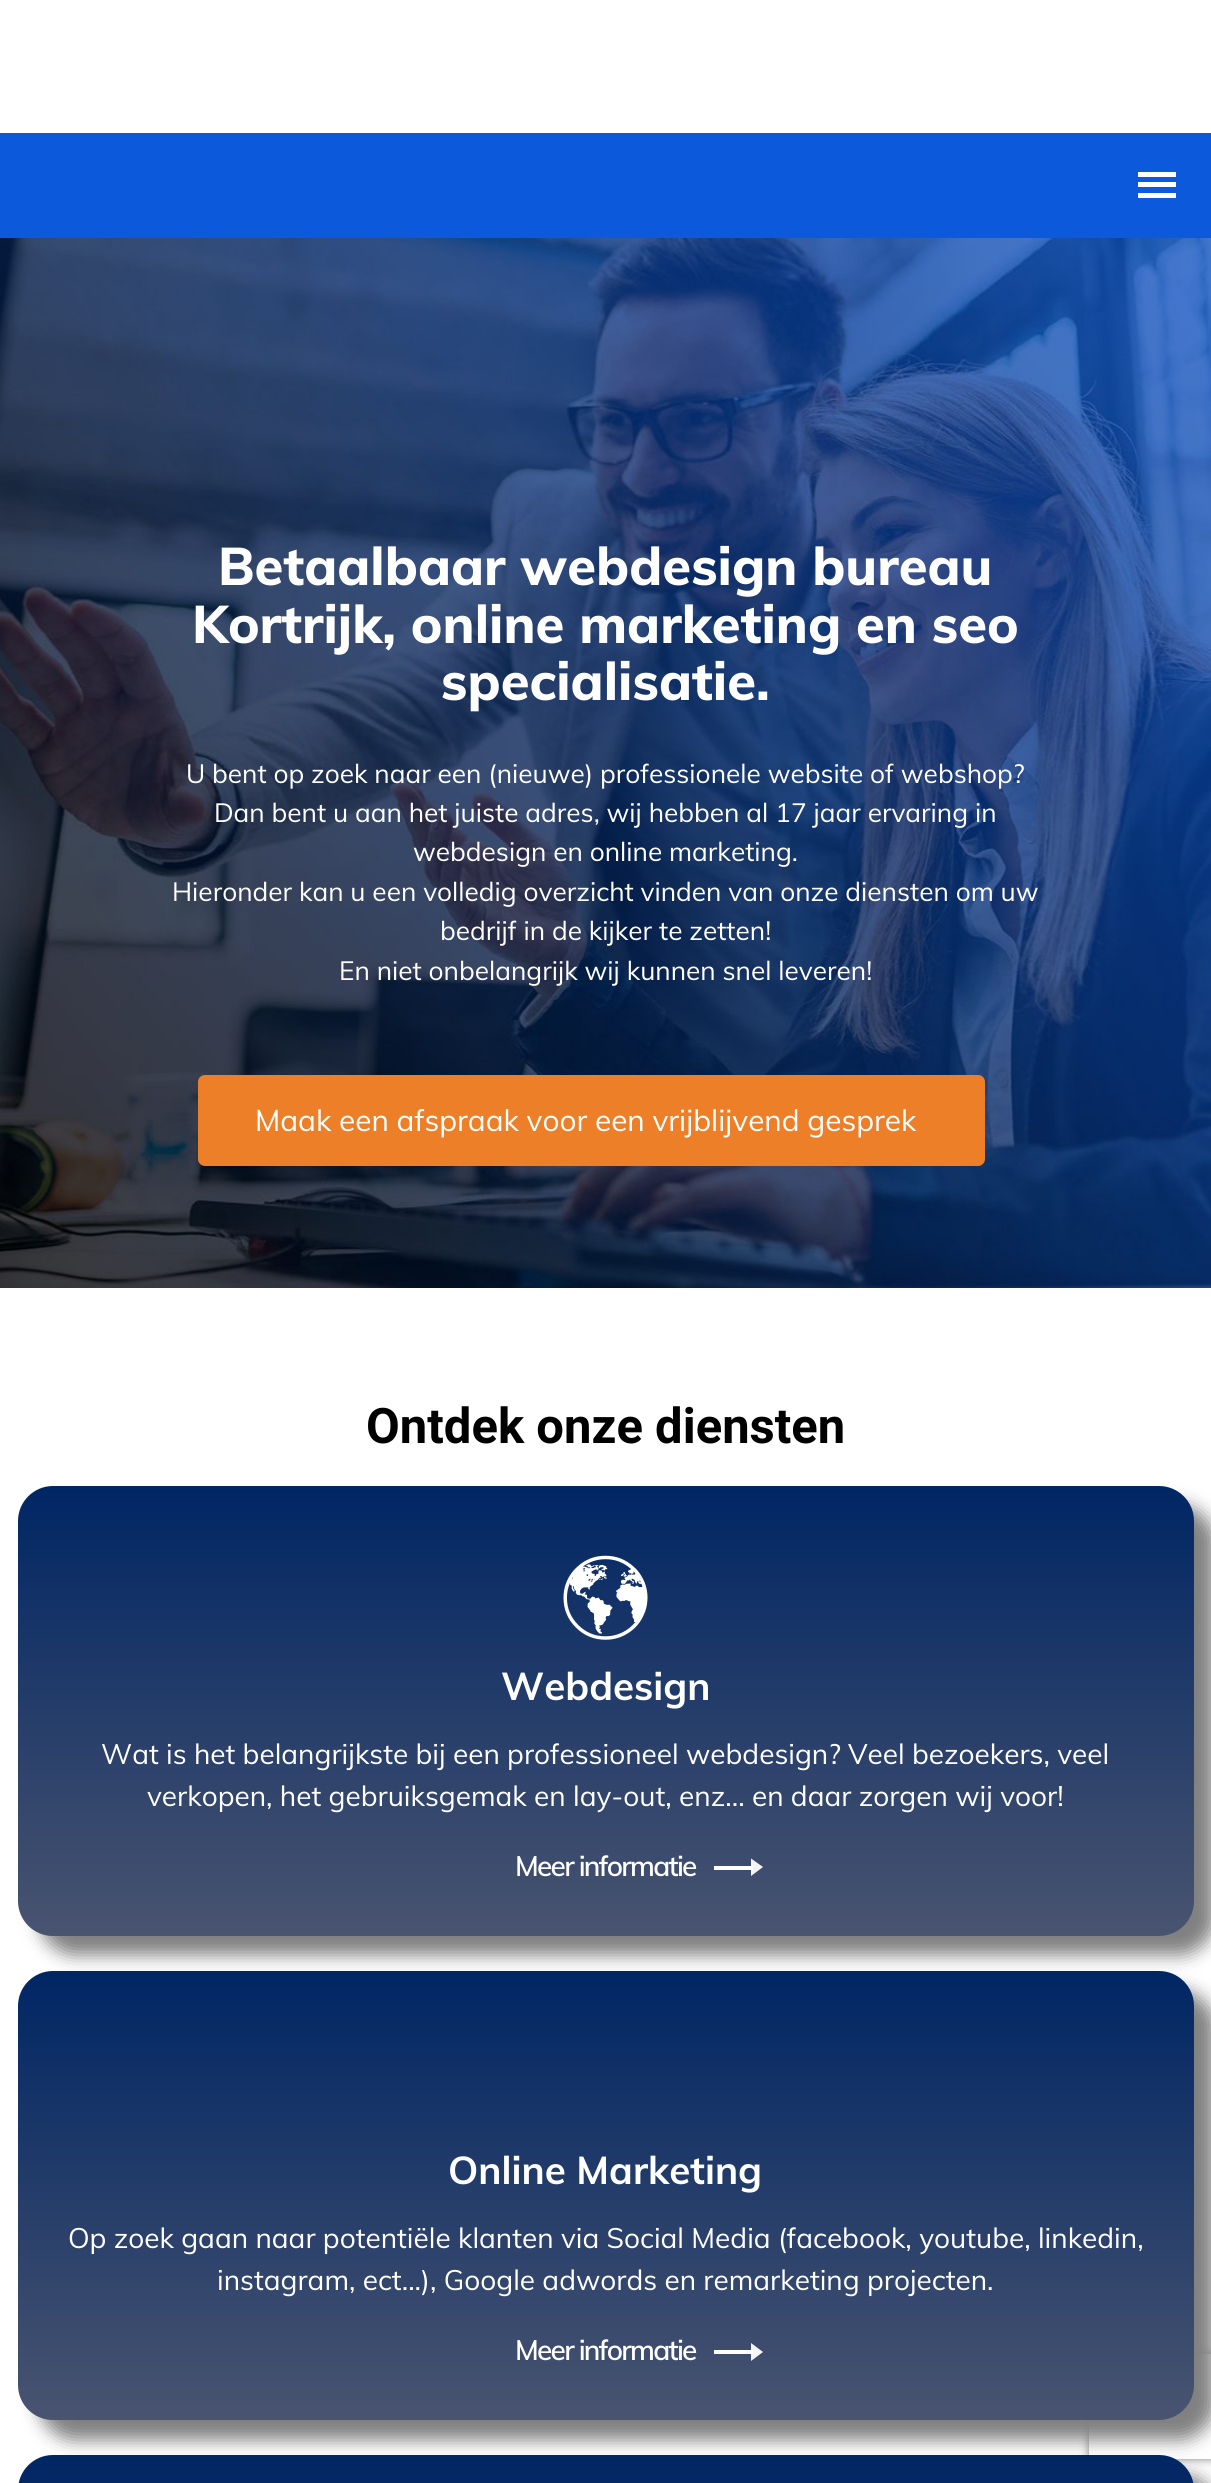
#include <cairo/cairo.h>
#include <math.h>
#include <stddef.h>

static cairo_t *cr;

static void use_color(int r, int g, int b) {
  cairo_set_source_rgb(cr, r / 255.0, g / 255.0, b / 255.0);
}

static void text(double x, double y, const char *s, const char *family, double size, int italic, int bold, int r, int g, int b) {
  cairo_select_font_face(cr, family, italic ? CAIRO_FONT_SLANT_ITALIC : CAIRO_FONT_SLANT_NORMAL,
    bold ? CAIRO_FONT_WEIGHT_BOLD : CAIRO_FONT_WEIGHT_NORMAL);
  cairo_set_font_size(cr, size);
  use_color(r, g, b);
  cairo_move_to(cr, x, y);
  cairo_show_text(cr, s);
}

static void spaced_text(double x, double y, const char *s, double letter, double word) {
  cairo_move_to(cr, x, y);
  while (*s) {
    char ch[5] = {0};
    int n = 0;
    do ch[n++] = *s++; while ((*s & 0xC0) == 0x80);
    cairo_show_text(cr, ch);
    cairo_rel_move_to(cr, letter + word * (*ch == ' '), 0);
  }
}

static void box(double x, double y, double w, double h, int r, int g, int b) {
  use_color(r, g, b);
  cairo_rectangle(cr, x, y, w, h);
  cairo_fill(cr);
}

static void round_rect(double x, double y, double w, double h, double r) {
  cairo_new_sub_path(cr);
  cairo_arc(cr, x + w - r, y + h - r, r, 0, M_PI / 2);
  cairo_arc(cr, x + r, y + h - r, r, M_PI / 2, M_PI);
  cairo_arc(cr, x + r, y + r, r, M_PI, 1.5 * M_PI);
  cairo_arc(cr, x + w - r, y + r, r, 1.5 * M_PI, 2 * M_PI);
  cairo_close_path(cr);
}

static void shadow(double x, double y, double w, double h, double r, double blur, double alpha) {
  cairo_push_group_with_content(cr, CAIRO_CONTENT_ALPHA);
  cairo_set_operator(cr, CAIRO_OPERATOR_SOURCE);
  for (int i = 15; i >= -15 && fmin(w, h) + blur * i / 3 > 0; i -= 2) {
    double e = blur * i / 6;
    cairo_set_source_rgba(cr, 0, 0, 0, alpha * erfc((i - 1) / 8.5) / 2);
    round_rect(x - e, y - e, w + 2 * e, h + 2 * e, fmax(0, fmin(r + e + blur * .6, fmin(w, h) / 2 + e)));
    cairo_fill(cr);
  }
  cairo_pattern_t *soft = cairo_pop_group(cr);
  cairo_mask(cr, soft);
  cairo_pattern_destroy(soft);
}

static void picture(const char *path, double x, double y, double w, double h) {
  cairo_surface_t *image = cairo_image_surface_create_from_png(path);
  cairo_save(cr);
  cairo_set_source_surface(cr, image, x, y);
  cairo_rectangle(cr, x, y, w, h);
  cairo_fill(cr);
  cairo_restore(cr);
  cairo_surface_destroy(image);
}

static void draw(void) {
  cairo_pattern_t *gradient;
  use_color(255, 255, 255);
  cairo_paint(cr);
  box(0, 133, 1211, 105, 12, 90, 219);
  box(1138, 172, 38, 5, 255, 255, 255);
  box(1138, 182, 38, 5, 255, 255, 255);
  box(1138, 193, 38, 5, 255, 255, 255);
  picture("img_01.png", 0, 238, 1211, 1050);
  use_color(237, 127, 40);
  round_rect(198, 1075, 787, 91, 7);
  cairo_fill(cr);
  use_color(0, 0, 0);
  shadow(39, 1505, 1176, 450, 35, 9, 0.5);
  gradient = cairo_pattern_create_linear(606, 1486, 606, 1936);
  cairo_pattern_add_color_stop_rgba(gradient, 0, 0, 0.149, 0.392, 1);
  cairo_pattern_add_color_stop_rgba(gradient, 1, 0.286, 0.329, 0.439, 1);
  cairo_set_source(cr, gradient);
  cairo_pattern_destroy(gradient);
  round_rect(18, 1486, 1176, 450, 35);
  cairo_fill(cr);
  picture("img_02.png", 563, 1555, 85, 85);
  use_color(245, 245, 245);
  cairo_new_path(cr);
  cairo_move_to(cr, 751, 1876);
  cairo_line_to(cr, 751, 1858.5);
  cairo_line_to(cr, 763, 1867);
  cairo_close_path(cr);
  cairo_fill(cr);
  box(714, 1866, 39, 4, 255, 255, 255);
  use_color(0, 0, 0);
  shadow(39, 1990, 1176, 450, 35, 9, 0.5);
  cairo_save(cr);
  cairo_set_fill_rule(cr, CAIRO_FILL_RULE_EVEN_ODD);
  cairo_new_path(cr);
  cairo_move_to(cr, 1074, 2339);
  cairo_line_to(cr, 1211, 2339);
  cairo_line_to(cr, 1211, 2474);
  cairo_line_to(cr, 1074, 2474);
  cairo_close_path(cr);
  cairo_move_to(cr, 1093, 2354);
  cairo_line_to(cr, 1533, 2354);
  cairo_curve_to(cr, 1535, 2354, 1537, 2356, 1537, 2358);
  cairo_line_to(cr, 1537, 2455);
  cairo_curve_to(cr, 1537, 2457, 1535, 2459, 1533, 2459);
  cairo_line_to(cr, 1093, 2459);
  cairo_curve_to(cr, 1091, 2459, 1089, 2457, 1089, 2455);
  cairo_line_to(cr, 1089, 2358);
  cairo_curve_to(cr, 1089, 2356, 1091, 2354, 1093, 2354);
  cairo_close_path(cr);
  cairo_clip(cr);
  use_color(128, 128, 128);
  shadow(1089, 2354, 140, 105, 4, 4.5, 1);
  cairo_restore(cr);
  gradient = cairo_pattern_create_linear(606, 1971, 606, 2420);
  cairo_pattern_add_color_stop_rgba(gradient, 0, 0, 0.149, 0.392, 1);
  cairo_pattern_add_color_stop_rgba(gradient, 1, 0.286, 0.329, 0.439, 1);
  cairo_set_source(cr, gradient);
  cairo_pattern_destroy(gradient);
  round_rect(18, 1971, 1176, 449, 35);
  cairo_fill(cr);
  use_color(245, 245, 245);
  cairo_new_path(cr);
  cairo_move_to(cr, 751, 2361);
  cairo_line_to(cr, 751, 2343);
  cairo_line_to(cr, 763, 2352);
  cairo_close_path(cr);
  cairo_fill(cr);
  box(714, 2350, 39, 4, 255, 255, 255);
  use_color(0, 0, 0);
  shadow(39, 2475, 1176, 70, 35, 9, 0.5);
  gradient = cairo_pattern_create_linear(606, 2455, 606, 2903);
  cairo_pattern_add_color_stop_rgba(gradient, 0, 0, 0.149, 0.392, 1);
  cairo_pattern_add_color_stop_rgba(gradient, 1, 0.286, 0.329, 0.439, 1);
  cairo_set_source(cr, gradient);
  cairo_pattern_destroy(gradient);
  round_rect(18, 2455, 1176, 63, 35);
  cairo_fill(cr);
  text(218, 585, "Betaalbaar webdesign bureau", "Muli ExtraBold", 52.5, 0, 0, 255, 255, 255);
  text(192, 643, "Kortrijk, online marketing en seo", "Muli ExtraBold", 52.5, 0, 0, 255, 255, 255);
  text(441, 700, "specialisatie.", "Muli ExtraBold", 52.5, 0, 0, 255, 255, 255);
  text(186, 783, "U bent op zoek naar een (nieuwe) professionele website of webshop?", "Muli", 26.25, 0, 0, 255, 255, 255);
  text(214, 822, "Dan bent u aan het juiste adres, wij hebben al 17 jaar ervaring in", "Muli", 26.25, 0, 0, 255, 255, 255);
  text(413, 861, "webdesign en online marketing.", "Muli", 26.25, 0, 0, 255, 255, 255);
  text(172, 901, "Hieronder kan u een volledig overzicht vinden van onze diensten om uw", "Muli", 26.25, 0, 0, 255, 255, 255);
  text(440, 940, "bedrijf in de kijker te zetten!", "Muli", 26.25, 0, 0, 255, 255, 255);
  text(339, 980, "En niet onbelangrijk wij kunnen snel leveren!", "Muli", 26.25, 0, 0, 255, 255, 255);
  text(255, 1131, "Maak een afspraak voor een vrijblijvend gesprek", "Muli", 29.75, 0, 0, 255, 255, 255);
  text(366, 1443, "Ontdek onze diensten", "Roboto", 49, 0, 1, 0, 0, 0);
  text(501, 1700, "Webdesign", "Muli", 38.5, 0, 1, 255, 255, 255);
  text(101, 1764, "Wat is het belangrijkste bij een professioneel webdesign? Veel bezoekers, veel", "Muli", 28, 0, 0, 255, 255, 255);
  text(147, 1806, "verkopen, het gebruiksgemak en lay-out, enz... en daar zorgen wij voor!", "Muli", 28, 0, 0, 255, 255, 255);
  cairo_select_font_face(cr, "Muli SemiBold", CAIRO_FONT_SLANT_NORMAL, CAIRO_FONT_WEIGHT_NORMAL);
  spaced_text(515, 1876, "Meer informatie", -1.75, 0);
  text(448, 2184, "Online Marketing", "Muli", 38.5, 0, 1, 255, 255, 255);
  text(68, 2248, "Op zoek gaan naar potentiële klanten via Social Media (facebook, youtube, linkedin,", "Muli", 28, 0, 0, 255, 255, 255);
  text(217, 2290, "instagram, ect...), Google adwords en remarketing projecten.", "Muli", 28, 0, 0, 255, 255, 255);
  cairo_select_font_face(cr, "Muli SemiBold", CAIRO_FONT_SLANT_NORMAL, CAIRO_FONT_WEIGHT_NORMAL);
  spaced_text(515, 2360, "Meer informatie", -1.75, 0);
}

int main(void) {
  cairo_surface_t *surface = cairo_image_surface_create(CAIRO_FORMAT_RGB24, 1211, 2483);
  cr = cairo_create(surface);
  cairo_font_options_t *options = cairo_font_options_create();
  cairo_font_options_set_hint_metrics(options, CAIRO_HINT_METRICS_OFF);
  cairo_font_options_set_hint_style(options, CAIRO_HINT_STYLE_NONE);
  cairo_set_font_options(cr, options);
  cairo_set_miter_limit(cr, 4);
  draw();
  cairo_surface_write_to_png(surface, "out.png");
  cairo_font_options_destroy(options);
  cairo_destroy(cr);
  cairo_surface_destroy(surface);
  return 0;
}
